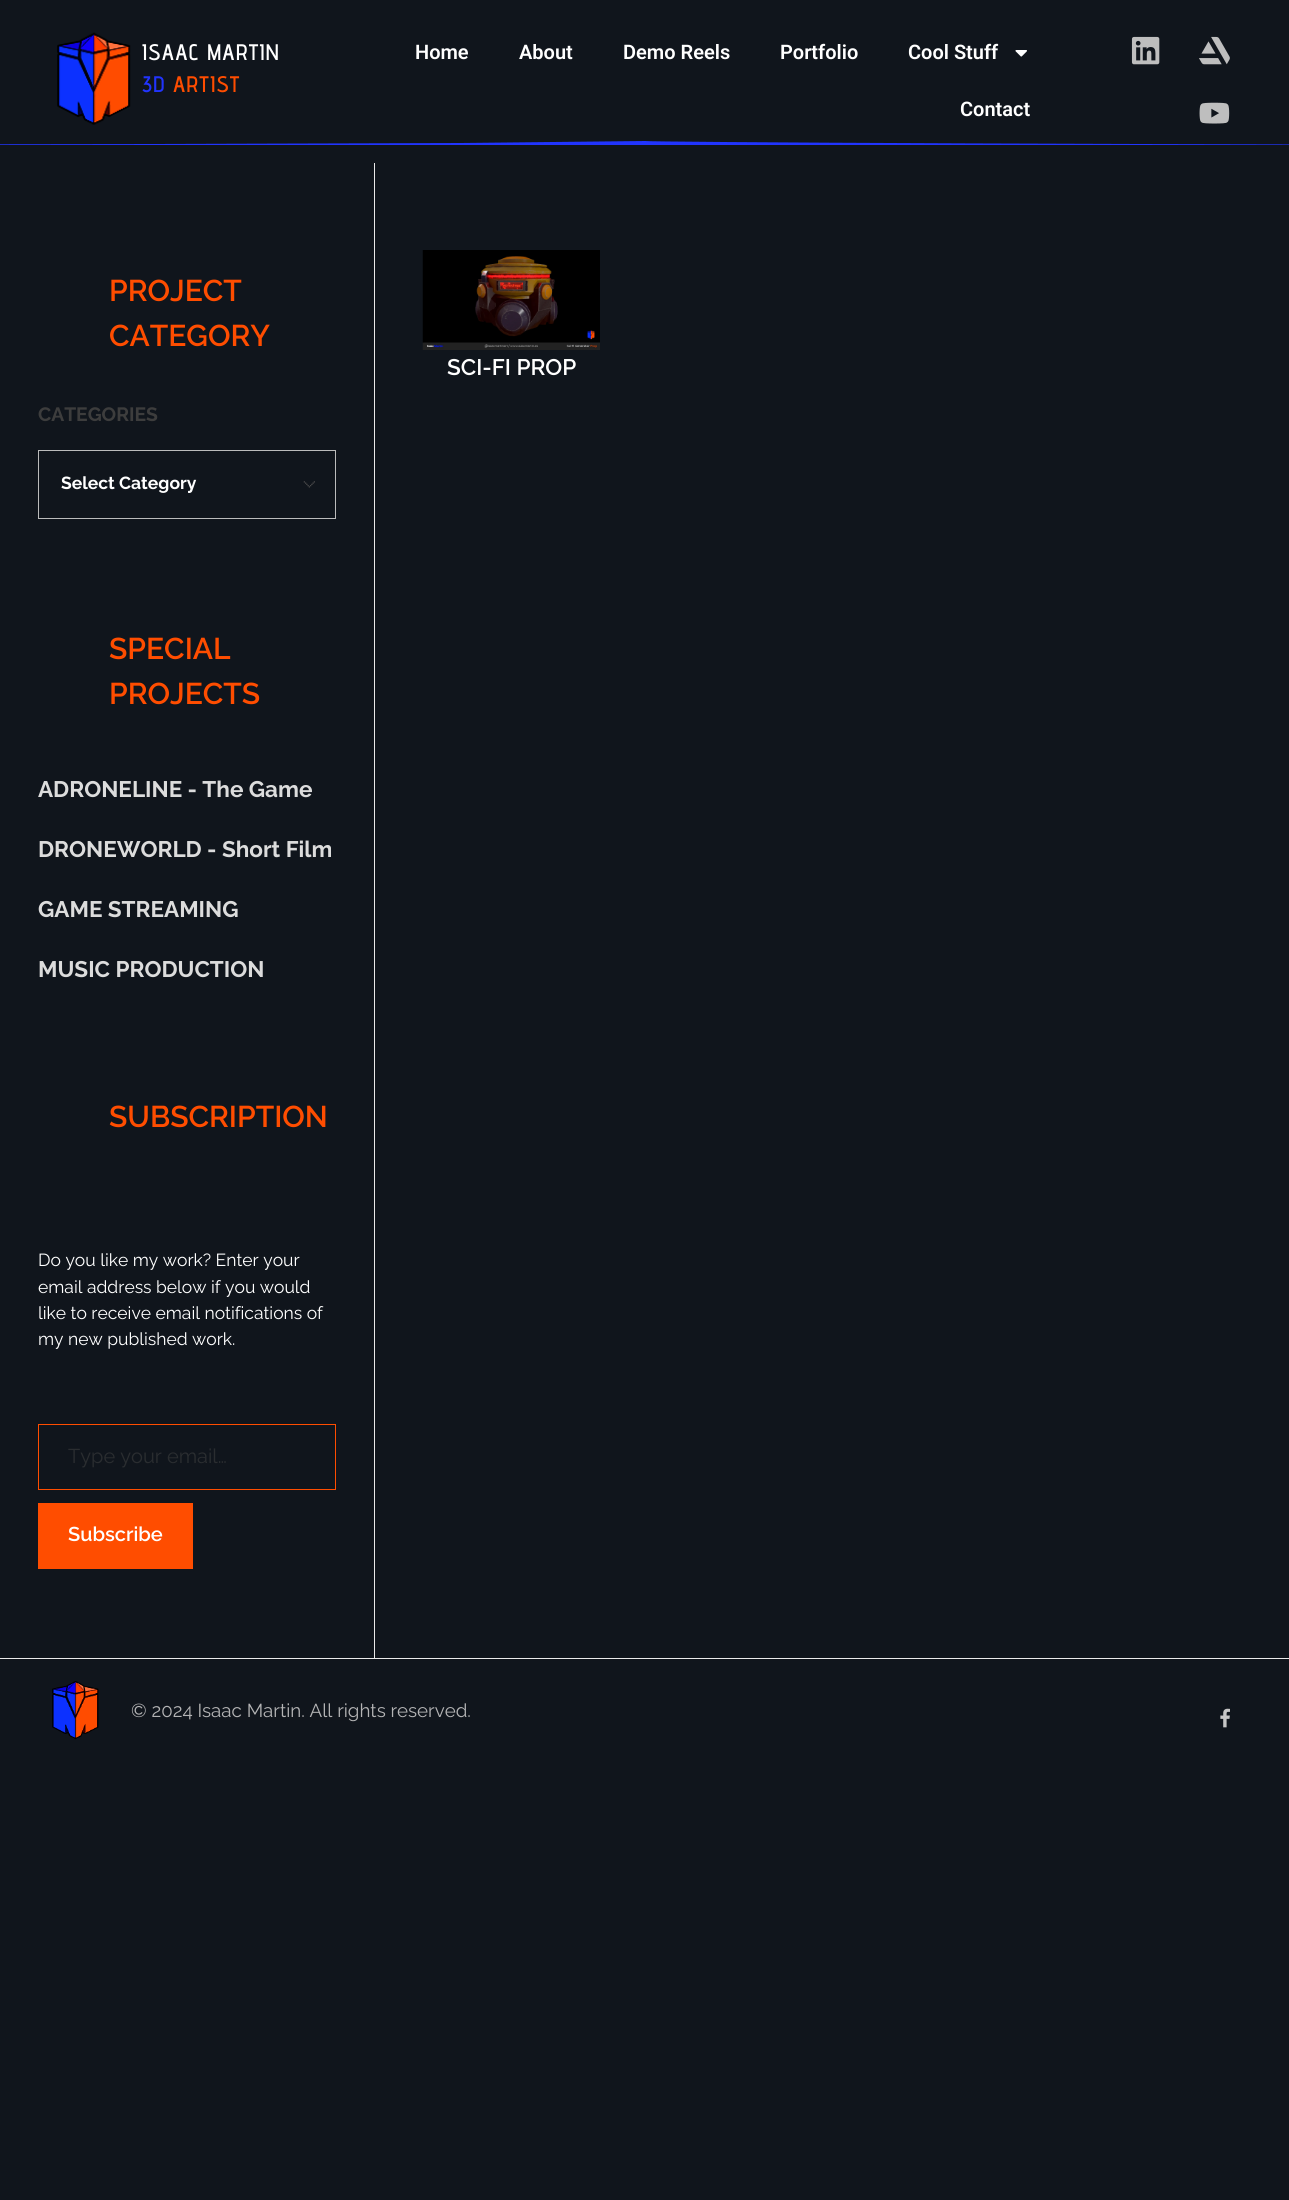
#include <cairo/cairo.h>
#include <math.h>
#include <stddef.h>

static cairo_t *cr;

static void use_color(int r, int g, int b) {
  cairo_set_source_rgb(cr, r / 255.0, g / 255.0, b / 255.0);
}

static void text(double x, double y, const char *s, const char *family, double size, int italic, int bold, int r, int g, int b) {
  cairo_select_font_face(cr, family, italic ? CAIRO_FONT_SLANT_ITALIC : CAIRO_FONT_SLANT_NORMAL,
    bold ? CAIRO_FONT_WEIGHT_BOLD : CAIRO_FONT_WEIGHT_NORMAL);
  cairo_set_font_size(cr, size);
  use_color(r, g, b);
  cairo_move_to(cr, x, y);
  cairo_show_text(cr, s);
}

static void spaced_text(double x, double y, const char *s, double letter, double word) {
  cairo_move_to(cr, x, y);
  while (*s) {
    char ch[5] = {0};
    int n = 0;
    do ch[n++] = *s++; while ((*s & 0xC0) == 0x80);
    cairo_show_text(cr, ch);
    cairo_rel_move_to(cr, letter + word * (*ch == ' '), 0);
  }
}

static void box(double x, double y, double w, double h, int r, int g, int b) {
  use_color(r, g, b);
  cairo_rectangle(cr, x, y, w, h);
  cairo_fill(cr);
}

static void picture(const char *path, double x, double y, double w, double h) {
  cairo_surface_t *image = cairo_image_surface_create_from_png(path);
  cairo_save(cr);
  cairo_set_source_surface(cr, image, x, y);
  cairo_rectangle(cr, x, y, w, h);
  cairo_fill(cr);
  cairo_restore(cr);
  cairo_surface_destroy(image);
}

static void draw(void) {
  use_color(16, 21, 28);
  cairo_paint(cr);
  picture("img_01.png", 57, 32, 74, 93);
  picture("img_02.png", 1015, 50, 12, 7);
  picture("img_03.png", 1131, 36, 29, 29);
  picture("img_04.png", 1199, 36, 31, 29);
  picture("img_05.png", 1199, 102, 31, 22);
  use_color(33, 52, 254);
  cairo_new_path(cr);
  cairo_move_to(cr, 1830, 145);
  cairo_curve_to(cr, 1108, 145, 645, 142, 645, 141);
  cairo_line_to(cr, 461, 143);
  cairo_line_to(cr, 155, 144);
  cairo_curve_to(cr, -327, 145, -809, 145, -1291, 145);
  cairo_line_to(cr, 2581, 145);
  cairo_close_path(cr);
  cairo_move_to(cr, 64, 144);
  cairo_close_path(cr);
  cairo_fill(cr);
  box(374, 163, 1, 1495, 234, 234, 234);
  picture("img_06.png", 303, 481, 12, 7);
  cairo_rectangle(cr, 38.5, 450.5, 297, 68);
  use_color(187, 187, 187);
  cairo_set_line_width(cr, 1);
  cairo_stroke(cr);
  cairo_rectangle(cr, 38.5, 1424.5, 297, 65);
  use_color(255, 77, 0);
  cairo_stroke(cr);
  box(38, 1503, 155, 66, 255, 77, 0);
  picture("img_07.png", 422, 250, 178, 100);
  box(0, 1658, 1289, 1, 234, 234, 234);
  picture("img_08.png", 52, 1681, 47, 59);
  picture("img_09.png", 1220, 1708, 10, 20);
  cairo_select_font_face(cr, "Advent Pro SemiBold", CAIRO_FONT_SLANT_NORMAL, CAIRO_FONT_WEIGHT_NORMAL);
  cairo_set_font_size(cr, 22.5);
  use_color(255, 255, 255);
  spaced_text(142, 60, "ISAAC MARTIN", 1.25, 0);
  use_color(33, 52, 254);
  spaced_text(142, 92, "3D", 1.25, 0);
  use_color(255, 77, 0);
  spaced_text(173, 92, "ARTIST", 1.25, 0);
  text(415, 59, "Home", "Roboto SemiBold", 20, 0, 0, 255, 255, 255);
  text(519, 59, "About", "Roboto SemiBold", 20, 0, 0, 255, 255, 255);
  text(623, 59, "Demo Reels", "Roboto SemiBold", 20, 0, 0, 255, 255, 255);
  text(780, 59, "Portfolio", "Roboto SemiBold", 20, 0, 0, 255, 255, 255);
  text(908, 59, "Cool Stuff", "Roboto SemiBold", 20, 0, 0, 255, 255, 255);
  text(960, 116, "Contact", "Roboto SemiBold", 20, 0, 0, 255, 255, 255);
  text(109, 301, "PROJECT", "Raleway SemiBold", 30, 0, 0, 255, 77, 0);
  text(109, 346, "CATEGORY", "Raleway SemiBold", 30, 0, 0, 255, 77, 0);
  text(38, 421, "CATEGORIES", "Raleway", 19.25, 0, 1, 61, 61, 61);
  text(61, 489, "Select Category", "Raleway", 17.5, 0, 1, 255, 255, 255);
  text(109, 659, "SPECIAL", "Raleway SemiBold", 30, 0, 0, 255, 77, 0);
  text(109, 704, "PROJECTS", "Raleway SemiBold", 30, 0, 0, 255, 77, 0);
  text(38, 797, "ADRONELINE - The Game", "Raleway", 22.5, 0, 1, 220, 220, 220);
  text(38, 857, "DRONEWORLD - Short Film", "Raleway", 22.5, 0, 1, 220, 220, 220);
  text(38, 917, "GAME STREAMING", "Raleway", 22.5, 0, 1, 220, 220, 220);
  text(38, 977, "MUSIC PRODUCTION", "Raleway", 22.5, 0, 1, 220, 220, 220);
  text(109, 1127, "SUBSCRIPTION", "Raleway SemiBold", 30, 0, 0, 255, 77, 0);
  text(38, 1266, "Do you like my work? Enter your", "Raleway", 17.5, 0, 0, 255, 255, 255);
  text(38, 1293, "email address below if you would", "Raleway", 17.5, 0, 0, 255, 255, 255);
  text(38, 1319, "like to receive email notifications of", "Raleway", 17.5, 0, 0, 255, 255, 255);
  text(38, 1345, "my new published work.", "Raleway", 17.5, 0, 0, 255, 255, 255);
  text(68, 1463, "Type your email…", "Raleway", 20, 0, 0, 42, 45, 48);
  text(68, 1541, "Subscribe", "Raleway SemiBold", 20, 0, 0, 255, 255, 255);
  text(447, 375, "SCI-FI PROP", "Raleway SemiBold", 22.5, 0, 0, 255, 255, 255);
  text(131, 1717, "© 2024 Isaac Martin. All rights reserved.", "Raleway", 18.75, 0, 0, 180, 180, 181);
}

int main(void) {
  cairo_surface_t *surface = cairo_image_surface_create(CAIRO_FORMAT_RGB24, 1289, 2200);
  cr = cairo_create(surface);
  cairo_font_options_t *options = cairo_font_options_create();
  cairo_font_options_set_hint_metrics(options, CAIRO_HINT_METRICS_OFF);
  cairo_font_options_set_hint_style(options, CAIRO_HINT_STYLE_NONE);
  cairo_set_font_options(cr, options);
  cairo_set_miter_limit(cr, 4);
  draw();
  cairo_surface_write_to_png(surface, "out.png");
  cairo_font_options_destroy(options);
  cairo_destroy(cr);
  cairo_surface_destroy(surface);
  return 0;
}
